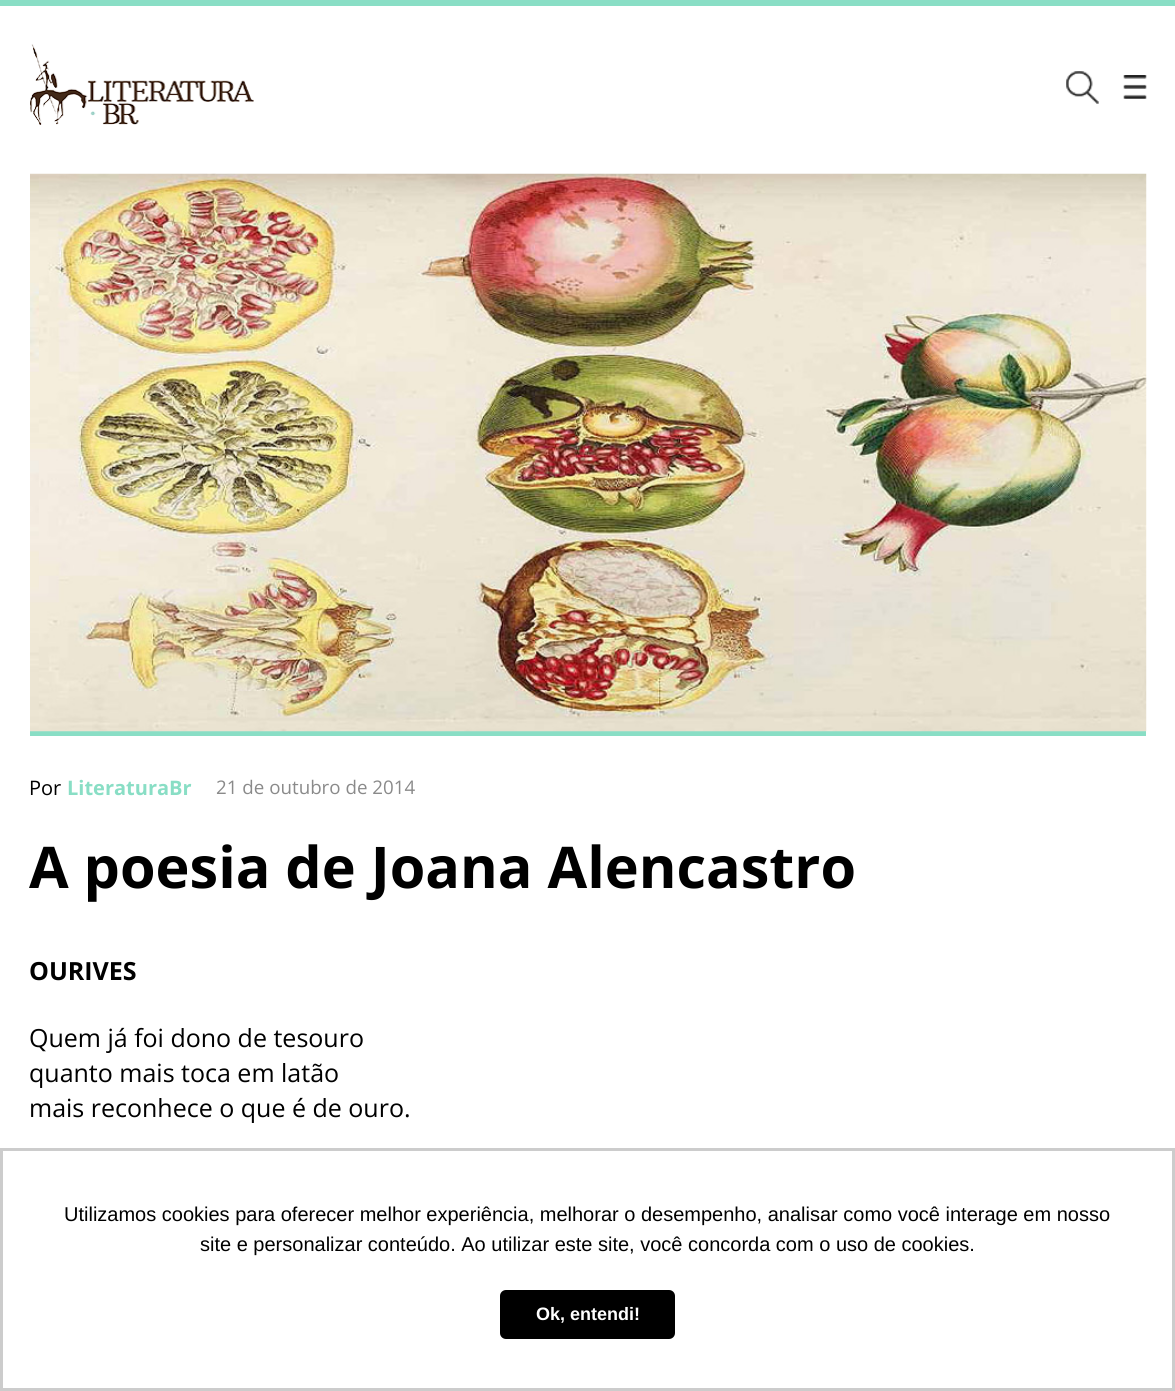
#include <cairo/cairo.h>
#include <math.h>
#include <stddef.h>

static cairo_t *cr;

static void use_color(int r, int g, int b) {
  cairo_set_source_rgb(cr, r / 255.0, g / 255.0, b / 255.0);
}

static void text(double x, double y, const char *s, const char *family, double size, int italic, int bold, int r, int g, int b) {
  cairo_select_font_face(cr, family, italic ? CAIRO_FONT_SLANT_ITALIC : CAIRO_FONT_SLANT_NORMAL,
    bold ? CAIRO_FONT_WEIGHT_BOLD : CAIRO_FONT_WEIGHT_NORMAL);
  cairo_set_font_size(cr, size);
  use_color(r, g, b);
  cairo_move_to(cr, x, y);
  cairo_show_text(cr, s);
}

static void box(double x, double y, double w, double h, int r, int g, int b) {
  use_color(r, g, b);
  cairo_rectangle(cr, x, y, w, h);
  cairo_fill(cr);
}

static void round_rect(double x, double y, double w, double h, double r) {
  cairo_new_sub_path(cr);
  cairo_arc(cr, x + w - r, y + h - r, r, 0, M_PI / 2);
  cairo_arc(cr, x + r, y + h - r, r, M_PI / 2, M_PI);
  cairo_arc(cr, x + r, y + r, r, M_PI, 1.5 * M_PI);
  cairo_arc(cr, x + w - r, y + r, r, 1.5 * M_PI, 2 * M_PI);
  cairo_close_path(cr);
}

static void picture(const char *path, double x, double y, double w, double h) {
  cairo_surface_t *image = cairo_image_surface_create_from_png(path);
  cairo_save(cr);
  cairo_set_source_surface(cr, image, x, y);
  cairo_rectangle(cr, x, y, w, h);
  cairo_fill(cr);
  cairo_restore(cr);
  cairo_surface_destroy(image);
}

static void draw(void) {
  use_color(255, 255, 255);
  cairo_paint(cr);
  box(0, 0, 1175, 6, 137, 222, 197);
  picture("img_01.png", 30, 44, 224, 81);
  picture("img_02.png", 1066, 71, 33, 33);
  picture("img_03.png", 1123, 75, 24, 24);
  box(30, 731, 1116, 5, 137, 222, 197);
  picture("img_04.png", 30, 173, 1117, 559);
  cairo_rectangle(cr, 1.5, 1149.5, 1172, 240);
  use_color(204, 204, 204);
  cairo_set_line_width(cr, 3);
  cairo_stroke(cr);
  use_color(0, 0, 0);
  round_rect(500, 1290, 175, 49, 6);
  cairo_fill(cr);
  text(29, 795, "Por", "Open Sans", 20, 0, 0, 0, 0, 0);
  text(67, 795, "LiteraturaBr", "Open Sans", 20, 0, 1, 137, 222, 197);
  text(216, 794, "21 de outubro de 2014", "Open Sans", 18.75, 0, 0, 138, 138, 138);
  text(29, 888, "A poesia de Joana Alencastro", "Open Sans", 57.5, 0, 1, 0, 0, 0);
  text(29, 980, "OURIVES", "Open Sans", 25, 0, 1, 0, 0, 0);
  text(29, 1047, "Quem já foi dono de tesouro", "Open Sans", 25, 0, 0, 0, 0, 0);
  text(29, 1082, "quanto mais toca em latão", "Open Sans", 25, 0, 0, 0, 0, 0);
  text(29, 1117, "mais reconhece o que é de ouro.", "Open Sans", 25, 0, 0, 0, 0, 0);
  text(64, 1221, "Utilizamos cookies para oferecer melhor experiência, melhorar o desempenho, analisar como você interage em nosso", "Liberation Sans", 20, 0, 0, 0, 0, 0);
  text(200, 1251, "site e personalizar conteúdo. Ao utilizar este site, você concorda com o uso de cookies.", "Liberation Sans", 20, 0, 0, 0, 0, 0);
  text(536, 1320, "Ok, entendi!", "Liberation Sans", 18, 0, 1, 255, 255, 255);
}

int main(void) {
  cairo_surface_t *surface = cairo_image_surface_create(CAIRO_FORMAT_RGB24, 1175, 1391);
  cr = cairo_create(surface);
  cairo_font_options_t *options = cairo_font_options_create();
  cairo_font_options_set_hint_metrics(options, CAIRO_HINT_METRICS_OFF);
  cairo_font_options_set_hint_style(options, CAIRO_HINT_STYLE_NONE);
  cairo_set_font_options(cr, options);
  cairo_set_miter_limit(cr, 4);
  draw();
  cairo_surface_write_to_png(surface, "out.png");
  cairo_font_options_destroy(options);
  cairo_destroy(cr);
  cairo_surface_destroy(surface);
  return 0;
}
